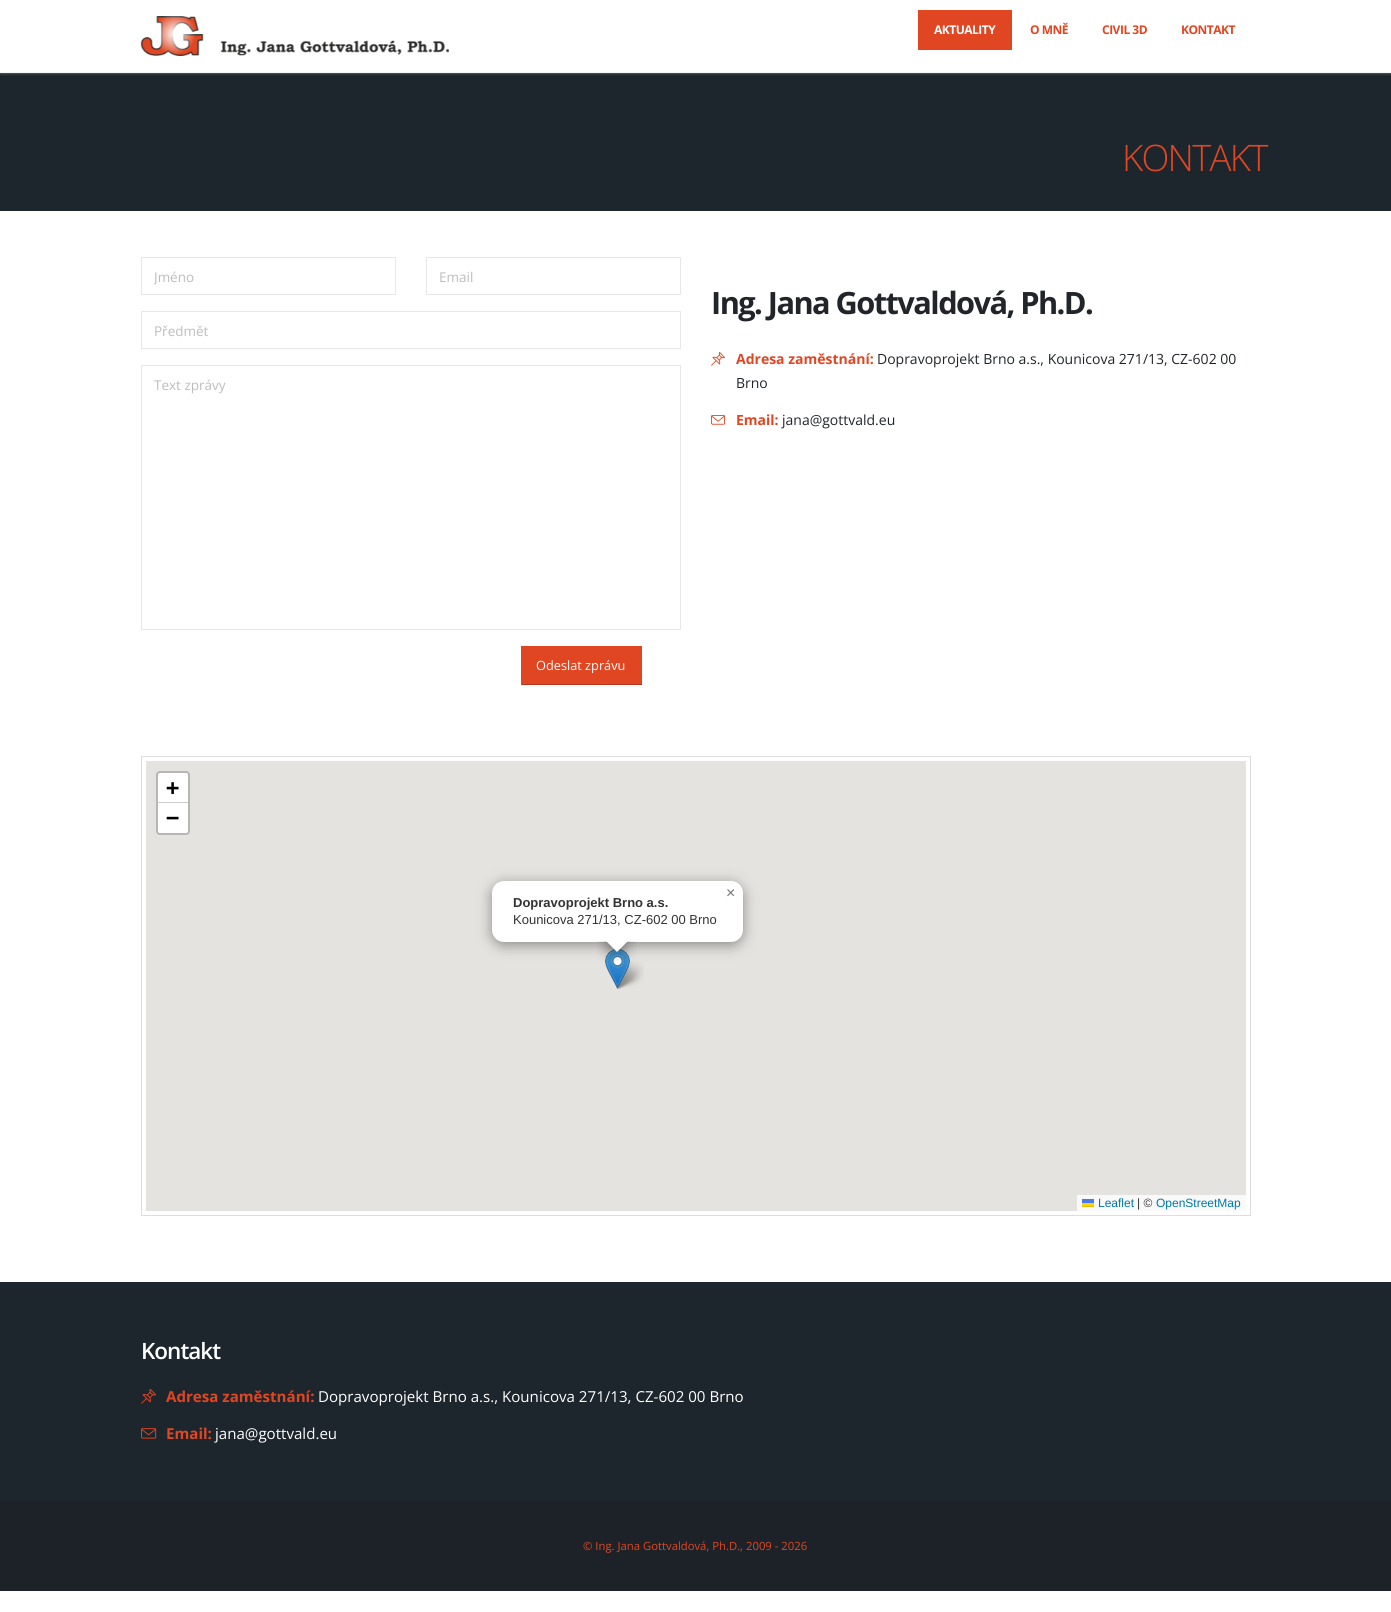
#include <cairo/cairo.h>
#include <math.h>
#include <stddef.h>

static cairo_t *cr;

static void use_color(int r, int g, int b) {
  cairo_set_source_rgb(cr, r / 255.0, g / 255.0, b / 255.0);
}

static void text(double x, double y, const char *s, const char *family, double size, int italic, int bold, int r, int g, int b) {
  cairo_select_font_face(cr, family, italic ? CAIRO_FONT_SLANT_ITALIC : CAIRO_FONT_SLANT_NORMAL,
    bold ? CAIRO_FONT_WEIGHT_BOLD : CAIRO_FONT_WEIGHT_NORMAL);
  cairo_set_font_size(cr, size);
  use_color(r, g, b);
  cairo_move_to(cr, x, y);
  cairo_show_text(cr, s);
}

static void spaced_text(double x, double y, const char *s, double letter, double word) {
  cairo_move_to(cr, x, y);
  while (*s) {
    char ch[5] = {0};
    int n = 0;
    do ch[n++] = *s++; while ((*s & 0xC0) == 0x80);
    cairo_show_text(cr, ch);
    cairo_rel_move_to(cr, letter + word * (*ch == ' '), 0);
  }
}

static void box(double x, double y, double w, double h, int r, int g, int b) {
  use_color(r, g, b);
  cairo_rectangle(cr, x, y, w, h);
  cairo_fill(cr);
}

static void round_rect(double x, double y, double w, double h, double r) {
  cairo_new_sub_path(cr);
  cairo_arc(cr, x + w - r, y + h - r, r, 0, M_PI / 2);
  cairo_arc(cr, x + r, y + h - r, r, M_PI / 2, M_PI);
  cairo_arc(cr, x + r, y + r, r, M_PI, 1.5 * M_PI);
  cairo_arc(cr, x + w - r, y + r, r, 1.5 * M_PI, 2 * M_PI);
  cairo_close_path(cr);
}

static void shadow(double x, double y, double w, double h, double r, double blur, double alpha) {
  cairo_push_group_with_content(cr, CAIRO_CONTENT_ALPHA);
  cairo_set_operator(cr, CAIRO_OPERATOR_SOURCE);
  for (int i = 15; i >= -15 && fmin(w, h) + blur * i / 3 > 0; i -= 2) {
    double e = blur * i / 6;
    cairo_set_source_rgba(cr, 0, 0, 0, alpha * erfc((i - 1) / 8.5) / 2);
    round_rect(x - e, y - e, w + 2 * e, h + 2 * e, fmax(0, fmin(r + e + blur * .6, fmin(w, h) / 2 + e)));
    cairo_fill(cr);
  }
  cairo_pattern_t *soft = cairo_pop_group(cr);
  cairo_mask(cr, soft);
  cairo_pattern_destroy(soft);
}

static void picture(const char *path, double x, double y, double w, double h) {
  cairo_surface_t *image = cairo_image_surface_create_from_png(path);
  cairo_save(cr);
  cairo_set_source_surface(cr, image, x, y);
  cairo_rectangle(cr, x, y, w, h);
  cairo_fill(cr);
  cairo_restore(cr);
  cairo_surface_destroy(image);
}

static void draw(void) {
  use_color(255, 255, 255);
  cairo_paint(cr);
  box(0, 73, 1391, 138, 29, 37, 45);
  cairo_save(cr);
  cairo_rectangle(cr, 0, 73, 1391, 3);
  cairo_clip(cr);
  use_color(234, 234, 234);
  shadow(0, 0, 1391, 73, 0, 1.5, 0.5);
  cairo_restore(cr);
  box(0, 72, 1391, 1, 245, 245, 245);
  picture("img_01.png", 140, 16, 309, 40);
  box(918, 10, 94, 40, 224, 70, 34);
  cairo_rectangle(cr, 141.5, 257.5, 254, 37);
  use_color(232, 232, 232);
  cairo_set_line_width(cr, 1);
  cairo_stroke(cr);
  cairo_rectangle(cr, 426.5, 257.5, 254, 37);
  cairo_stroke(cr);
  cairo_rectangle(cr, 141.5, 311.5, 539, 37);
  cairo_stroke(cr);
  cairo_rectangle(cr, 141.5, 365.5, 539, 264);
  cairo_stroke(cr);
  box(522, 646, 120, 38, 224, 70, 34);
  box(521, 684, 121, 1, 182, 55, 25);
  box(521, 646, 1, 39, 224, 70, 34);
  picture("img_02.png", 711, 351, 14, 15);
  picture("img_03.png", 711, 415, 14, 10);
  cairo_rectangle(cr, 141.5, 756.5, 1109, 459);
  use_color(221, 221, 221);
  cairo_stroke(cr);
  box(146, 761, 1100, 450, 229, 227, 223);
  round_rect(157, 772, 32, 62, 3);
  use_color(183, 182, 178);
  cairo_set_line_width(cr, 2);
  cairo_stroke(cr);
  use_color(255, 255, 255);
  cairo_new_path(cr);
  cairo_move_to(cr, 160, 773);
  cairo_line_to(cr, 186, 773);
  cairo_curve_to(cr, 187, 773, 188, 774, 188, 775);
  cairo_line_to(cr, 188, 803);
  cairo_line_to(cr, 158, 803);
  cairo_line_to(cr, 158, 775);
  cairo_curve_to(cr, 158, 774, 159, 773, 160, 773);
  cairo_close_path(cr);
  cairo_fill(cr);
  box(158, 802, 30, 1, 204, 204, 204);
  use_color(255, 255, 255);
  cairo_new_path(cr);
  cairo_move_to(cr, 158, 803);
  cairo_line_to(cr, 188, 803);
  cairo_line_to(cr, 188, 831);
  cairo_curve_to(cr, 188, 832, 187, 833, 186, 833);
  cairo_line_to(cr, 160, 833);
  cairo_curve_to(cr, 159, 833, 158, 832, 158, 831);
  cairo_close_path(cr);
  cairo_fill(cr);
  box(1077, 1195, 169, 16, 250, 249, 249);
  box(1082, 1199, 12, 4, 76, 123, 225);
  box(1082, 1203, 12, 3, 255, 213, 0);
  box(1082, 1206, 12, 1, 224, 188, 0);
  picture("img_05.png", 615, 961, 29, 28);
  picture("img_04.png", 605, 949, 25, 40);
  use_color(0, 0, 0);
  shadow(492, 884, 251, 61, 12, 7, 0.4);
  use_color(255, 255, 255);
  round_rect(492, 881, 251, 61, 12);
  cairo_fill(cr);
  cairo_save(cr);
  cairo_rectangle(cr, 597, 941, 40, 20);
  cairo_clip(cr);
  use_color(0, 0, 0);
  shadow(608, 934, 17, 17, 0, 7, 0.4);
  cairo_restore(cr);
  cairo_save(cr);
  cairo_rectangle(cr, 597, 941, 40, 20);
  cairo_clip(cr);
  cairo_new_path(cr);
  cairo_move_to(cr, 617, 928);
  cairo_line_to(cr, 629, 940);
  cairo_line_to(cr, 617, 952);
  cairo_line_to(cr, 605, 940);
  cairo_close_path(cr);
  cairo_fill(cr);
  cairo_restore(cr);
  box(0, 1282, 1391, 219, 29, 37, 45);
  picture("img_06.png", 141, 1388, 16, 16);
  picture("img_07.png", 141, 1428, 16, 11);
  box(0, 1501, 1391, 90, 29, 34, 40);
  cairo_select_font_face(cr, "Open Sans", CAIRO_FONT_SLANT_NORMAL, CAIRO_FONT_WEIGHT_BOLD);
  cairo_set_font_size(cr, 12);
  use_color(255, 255, 255);
  spaced_text(934, 34, "AKTUALITY", -0.5, 0);
  use_color(224, 70, 34);
  spaced_text(1030, 34, "O MNĚ", -0.5, 0);
  spaced_text(1102, 34, "CIVIL 3D", -0.5, 0);
  spaced_text(1181, 34, "KONTAKT", -0.5, 0);
  cairo_select_font_face(cr, "Open Sans Light", CAIRO_FONT_SLANT_NORMAL, CAIRO_FONT_WEIGHT_NORMAL);
  cairo_set_font_size(cr, 36.5);
  spaced_text(1122, 171, "KONTAKT", -1.75, 0);
  cairo_save(cr);
  cairo_rectangle(cr, 154, 267, 229, 19);
  cairo_clip(cr);
  text(154, 282, "Jméno", "Open Sans", 13.5, 0, 0, 189, 189, 189);
  cairo_restore(cr);
  text(439, 282, "Email", "Open Sans", 13.5, 0, 0, 189, 189, 189);
  text(154, 336, "Předmět", "Open Sans", 13.5, 0, 0, 189, 189, 189);
  text(154, 390, "Text zprávy", "Open Sans", 13.5, 0, 0, 189, 189, 189);
  text(536, 670, "Odeslat zprávu", "Open Sans", 12.75, 0, 0, 255, 255, 255);
  cairo_select_font_face(cr, "Open Sans", CAIRO_FONT_SLANT_NORMAL, CAIRO_FONT_WEIGHT_BOLD);
  cairo_set_font_size(cr, 30.75);
  use_color(33, 37, 41);
  spaced_text(711, 314, "Ing. Jana Gottvaldová, Ph.D.", -1.55, 0);
  text(736, 364, "Adresa zaměstnání:", "Open Sans", 14, 0, 1, 224, 70, 34);
  text(877, 364, "Dopravoprojekt Brno a.s., Kounicova 271/13, CZ-602 00", "Open Sans", 14, 0, 0, 33, 37, 41);
  text(736, 388, "Brno", "Open Sans", 14, 0, 0, 33, 37, 41);
  text(736, 425, "Email:", "Open Sans", 14, 0, 1, 224, 70, 34);
  text(782, 425, "jana@gottvald.eu", "Open Sans", 14, 0, 0, 33, 37, 41);
  text(166, 795, "+", "DejaVu Sans Mono", 22, 0, 1, 0, 0, 0);
  text(166, 825, "−", "DejaVu Sans Mono", 22, 0, 1, 0, 0, 0);
  text(1098, 1207, "Leaflet", "Liberation Sans", 12, 0, 0, 0, 120, 168);
  text(1137, 1207, "| ©", "Liberation Sans", 12, 0, 0, 51, 51, 51);
  text(1156, 1207, "OpenStreetMap", "Liberation Sans", 12, 0, 0, 0, 120, 168);
  text(726, 898, "×", "Liberation Sans", 16, 0, 0, 117, 117, 117);
  text(513, 907, "Dopravoprojekt Brno a.s.", "Liberation Sans", 13, 0, 1, 51, 51, 51);
  text(513, 924, "Kounicova 271/13, CZ-602 00 Brno", "Liberation Sans", 13, 0, 0, 51, 51, 51);
  cairo_select_font_face(cr, "Open Sans SemiBold", CAIRO_FONT_SLANT_NORMAL, CAIRO_FONT_WEIGHT_NORMAL);
  cairo_set_font_size(cr, 22.5);
  use_color(255, 255, 255);
  spaced_text(141, 1359, "Kontakt", -1, 0);
  text(166, 1402, "Adresa zaměstnání:", "Open Sans", 15.1, 0, 1, 224, 70, 34);
  text(318, 1402, "Dopravoprojekt Brno a.s., Kounicova 271/13, CZ-602 00 Brno", "Open Sans", 15.1, 0, 0, 255, 255, 255);
  text(166, 1439, "Email:", "Open Sans", 15.1, 0, 1, 224, 70, 34);
  text(215, 1439, "jana@gottvald.eu", "Open Sans", 15.1, 0, 0, 255, 255, 255);
  text(583, 1550, "© Ing. Jana Gottvaldová, Ph.D., 2009 - 2026", "Open Sans", 11.3, 0, 0, 224, 70, 34);
}

int main(void) {
  cairo_surface_t *surface = cairo_image_surface_create(CAIRO_FORMAT_RGB24, 1391, 1612);
  cr = cairo_create(surface);
  cairo_font_options_t *options = cairo_font_options_create();
  cairo_font_options_set_hint_metrics(options, CAIRO_HINT_METRICS_OFF);
  cairo_font_options_set_hint_style(options, CAIRO_HINT_STYLE_NONE);
  cairo_set_font_options(cr, options);
  cairo_set_miter_limit(cr, 4);
  draw();
  cairo_surface_write_to_png(surface, "out.png");
  cairo_font_options_destroy(options);
  cairo_destroy(cr);
  cairo_surface_destroy(surface);
  return 0;
}
